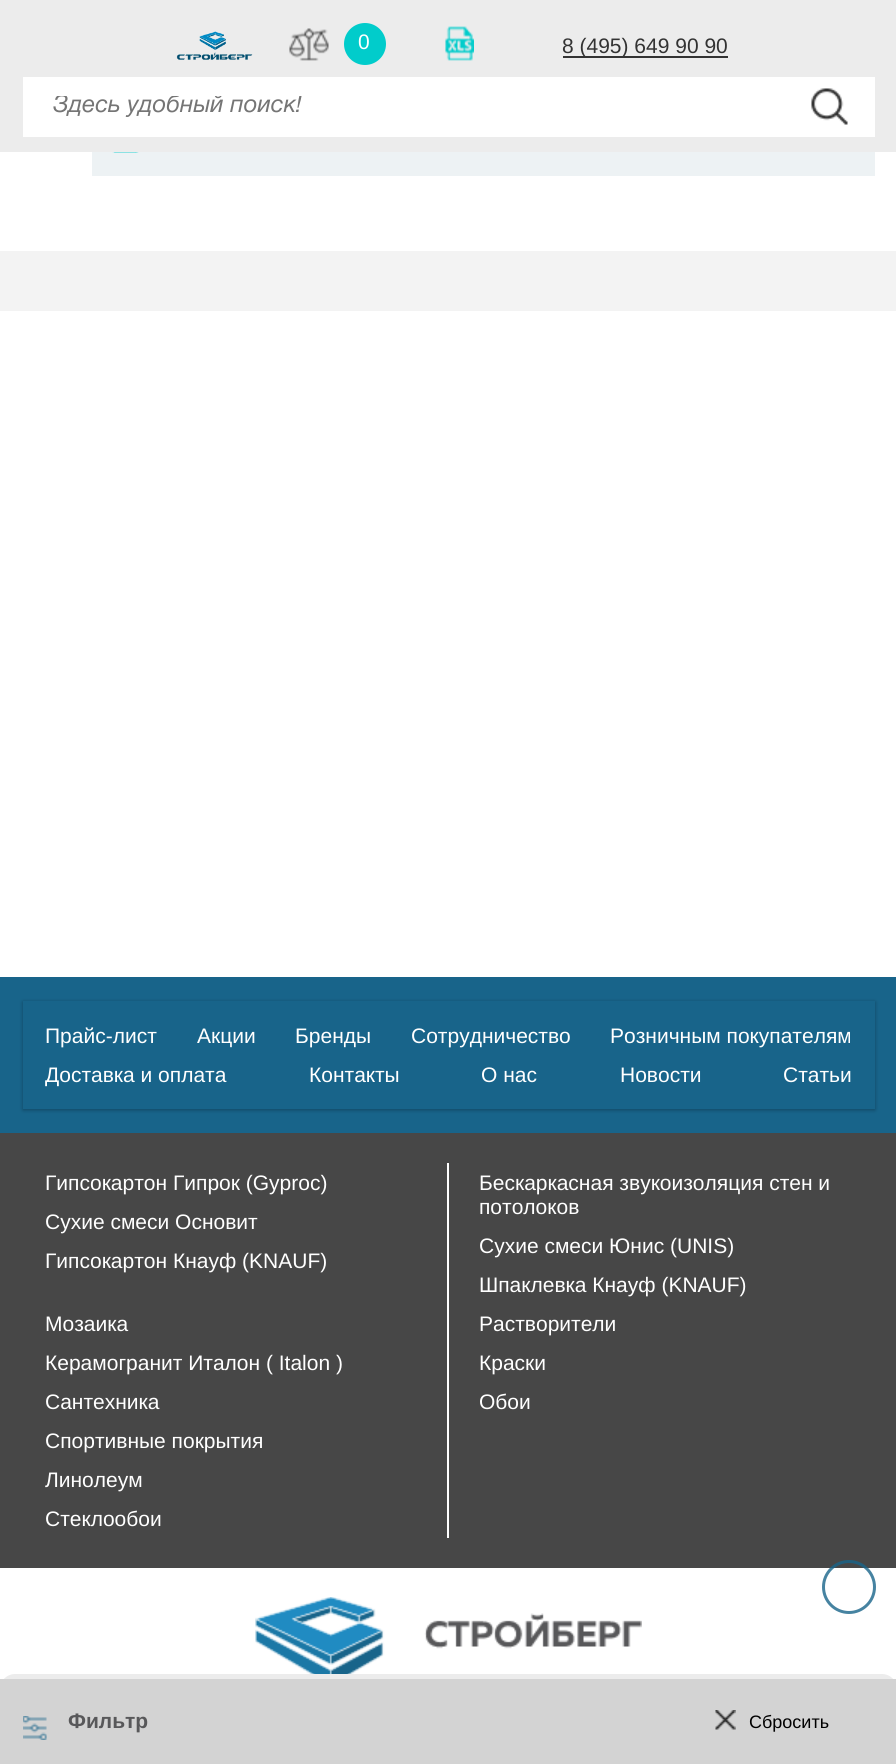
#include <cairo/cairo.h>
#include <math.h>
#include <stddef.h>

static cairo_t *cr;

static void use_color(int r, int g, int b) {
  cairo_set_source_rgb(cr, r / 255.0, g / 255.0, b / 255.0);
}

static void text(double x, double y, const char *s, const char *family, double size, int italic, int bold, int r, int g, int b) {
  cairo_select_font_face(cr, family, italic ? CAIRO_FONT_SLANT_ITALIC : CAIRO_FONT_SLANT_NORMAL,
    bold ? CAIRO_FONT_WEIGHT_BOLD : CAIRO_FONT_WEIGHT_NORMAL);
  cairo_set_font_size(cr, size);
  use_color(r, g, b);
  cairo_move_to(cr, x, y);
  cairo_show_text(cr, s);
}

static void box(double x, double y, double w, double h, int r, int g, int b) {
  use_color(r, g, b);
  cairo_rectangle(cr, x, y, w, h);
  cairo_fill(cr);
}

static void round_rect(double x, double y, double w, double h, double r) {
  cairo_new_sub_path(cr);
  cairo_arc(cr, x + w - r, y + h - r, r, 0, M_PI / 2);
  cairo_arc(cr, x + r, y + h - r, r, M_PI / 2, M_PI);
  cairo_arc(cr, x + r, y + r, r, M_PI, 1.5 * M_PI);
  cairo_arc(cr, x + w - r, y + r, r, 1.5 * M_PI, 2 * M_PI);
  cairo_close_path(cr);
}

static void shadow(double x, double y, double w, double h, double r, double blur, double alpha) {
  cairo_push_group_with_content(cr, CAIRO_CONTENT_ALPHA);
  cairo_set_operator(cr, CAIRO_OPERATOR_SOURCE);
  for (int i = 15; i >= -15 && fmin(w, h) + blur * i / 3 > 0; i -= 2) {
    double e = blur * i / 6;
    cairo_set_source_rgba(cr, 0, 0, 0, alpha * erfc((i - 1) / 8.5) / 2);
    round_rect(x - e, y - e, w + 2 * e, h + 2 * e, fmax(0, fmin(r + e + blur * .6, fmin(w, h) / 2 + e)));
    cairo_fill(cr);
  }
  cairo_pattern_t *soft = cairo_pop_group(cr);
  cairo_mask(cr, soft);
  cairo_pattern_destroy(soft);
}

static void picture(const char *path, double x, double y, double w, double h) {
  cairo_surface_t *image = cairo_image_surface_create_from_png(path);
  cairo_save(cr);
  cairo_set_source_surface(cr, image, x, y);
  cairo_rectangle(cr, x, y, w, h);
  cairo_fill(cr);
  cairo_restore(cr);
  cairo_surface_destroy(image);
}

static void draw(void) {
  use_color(255, 255, 255);
  cairo_paint(cr);
  box(0, 0, 896, 152, 236, 236, 236);
  picture("img_01.png", 176, 31, 77, 29);
  picture("img_02.png", 289, 28, 40, 33);
  use_color(1, 204, 203);
  cairo_arc(cr, 365, 44, 21, 0, 2 * M_PI);
  cairo_fill(cr);
  picture("img_03.png", 445, 26, 29, 35);
  box(563, 56, 165, 2, 51, 51, 51);
  box(23, 77, 852, 60, 255, 255, 255);
  picture("img_04.png", 811, 88, 37, 37);
  box(0, 251, 896, 60, 243, 243, 243);
  box(92, 152, 783, 24, 237, 242, 244);
  picture("img_05.png", 112, 152, 27, 1);
  use_color(236, 236, 236);
  round_rect(0, 1674, 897, 90, 15);
  cairo_fill(cr);
  box(0, 1679, 896, 85, 211, 211, 211);
  picture("img_06.png", 23, 1716, 24, 24);
  picture("img_07.png", 715, 1710, 21, 20);
  box(0, 977, 896, 156, 24, 100, 138);
  use_color(0, 0, 0);
  shadow(23, 1002, 852, 108, 0, 2, 0.3);
  box(23, 1001, 852, 108, 24, 100, 138);
  box(0, 1133, 896, 435, 71, 71, 71);
  box(447, 1163, 2, 375, 255, 255, 255);
  picture("img_08.png", 255, 1597, 387, 77);
  cairo_arc(cr, 849, 1587, 25.5, 0, 2 * M_PI);
  cairo_set_source_rgba(cr, 0.094, 0.392, 0.541, 0.8);
  cairo_set_line_width(cr, 3);
  cairo_stroke(cr);
  text(358, 49, "0", "Liberation Sans", 21, 0, 0, 255, 255, 255);
  text(562, 53, "8 (495) 649 90 90", "Liberation Sans", 21, 0, 0, 51, 51, 51);
  cairo_save(cr);
  cairo_rectangle(cr, 53, 96, 724, 23);
  cairo_clip(cr);
  text(53, 112, "Здесь удобный поиск!", "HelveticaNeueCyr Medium", 24, 1, 0, 117, 117, 117);
  cairo_restore(cr);
  text(68, 1728, "Фильтр", "Liberation Sans", 21, 0, 1, 88, 88, 90);
  text(749, 1728, "Сбросить", "Liberation Sans", 18, 0, 0, 0, 0, 0);
  text(45, 1043, "Прайс-лист", "Liberation Sans", 21, 0, 0, 255, 255, 255);
  text(197, 1043, "Акции", "Liberation Sans", 21, 0, 0, 255, 255, 255);
  text(295, 1043, "Бренды", "Liberation Sans", 21, 0, 0, 255, 255, 255);
  text(411, 1043, "Сотрудничество", "Liberation Sans", 21, 0, 0, 255, 255, 255);
  text(610, 1043, "Розничным покупателям", "Liberation Sans", 21, 0, 0, 255, 255, 255);
  text(45, 1082, "Доставка и оплата", "Liberation Sans", 21, 0, 0, 255, 255, 255);
  text(309, 1082, "Контакты", "Liberation Sans", 21, 0, 0, 255, 255, 255);
  text(481, 1082, "О нас", "Liberation Sans", 21, 0, 0, 255, 255, 255);
  text(620, 1082, "Новости", "Liberation Sans", 21, 0, 0, 255, 255, 255);
  text(783, 1082, "Статьи", "Liberation Sans", 21, 0, 0, 255, 255, 255);
  text(45, 1190, "Гипсокартон Гипрок (Gyproc)", "Liberation Sans", 21, 0, 0, 255, 255, 255);
  text(45, 1229, "Cухие смеси Основит", "Liberation Sans", 21, 0, 0, 255, 255, 255);
  text(45, 1268, "Гипсокартон Кнауф (KNAUF)", "Liberation Sans", 21, 0, 0, 255, 255, 255);
  text(479, 1190, "Бескаркасная звукоизоляция стен и", "Liberation Sans", 21, 0, 0, 255, 255, 255);
  text(479, 1214, "потолоков", "Liberation Sans", 21, 0, 0, 255, 255, 255);
  text(479, 1253, "Сухие смеси Юнис (UNIS)", "Liberation Sans", 21, 0, 0, 255, 255, 255);
  text(479, 1292, "Шпаклевка Кнауф (KNAUF)", "Liberation Sans", 21, 0, 0, 255, 255, 255);
  text(45, 1331, "Мозаика", "Liberation Sans", 21, 0, 0, 255, 255, 255);
  text(45, 1370, "Керамогранит Италон ( Italon )", "Liberation Sans", 21, 0, 0, 255, 255, 255);
  text(45, 1409, "Сантехника", "Liberation Sans", 21, 0, 0, 255, 255, 255);
  text(479, 1331, "Растворители", "Liberation Sans", 21, 0, 0, 255, 255, 255);
  text(479, 1370, "Краски", "Liberation Sans", 21, 0, 0, 255, 255, 255);
  text(479, 1409, "Обои", "Liberation Sans", 21, 0, 0, 255, 255, 255);
  text(45, 1448, "Спортивные покрытия", "Liberation Sans", 21, 0, 0, 255, 255, 255);
  text(45, 1487, "Линолеум", "Liberation Sans", 21, 0, 0, 255, 255, 255);
  text(45, 1526, "Стеклообои", "Liberation Sans", 21, 0, 0, 255, 255, 255);
}

int main(void) {
  cairo_surface_t *surface = cairo_image_surface_create(CAIRO_FORMAT_RGB24, 896, 1764);
  cr = cairo_create(surface);
  cairo_font_options_t *options = cairo_font_options_create();
  cairo_font_options_set_hint_metrics(options, CAIRO_HINT_METRICS_OFF);
  cairo_font_options_set_hint_style(options, CAIRO_HINT_STYLE_NONE);
  cairo_set_font_options(cr, options);
  cairo_set_miter_limit(cr, 4);
  draw();
  cairo_surface_write_to_png(surface, "out.png");
  cairo_font_options_destroy(options);
  cairo_destroy(cr);
  cairo_surface_destroy(surface);
  return 0;
}
